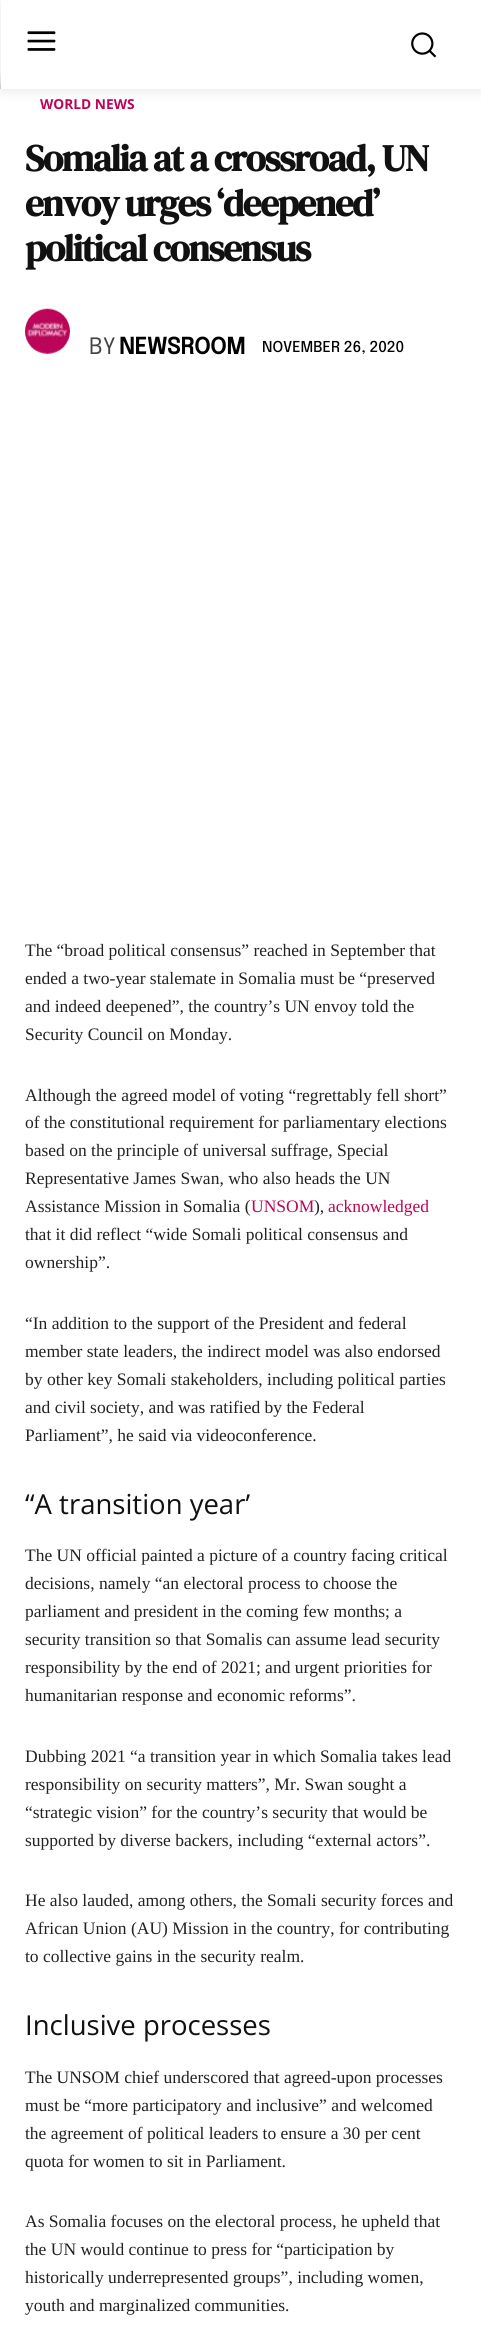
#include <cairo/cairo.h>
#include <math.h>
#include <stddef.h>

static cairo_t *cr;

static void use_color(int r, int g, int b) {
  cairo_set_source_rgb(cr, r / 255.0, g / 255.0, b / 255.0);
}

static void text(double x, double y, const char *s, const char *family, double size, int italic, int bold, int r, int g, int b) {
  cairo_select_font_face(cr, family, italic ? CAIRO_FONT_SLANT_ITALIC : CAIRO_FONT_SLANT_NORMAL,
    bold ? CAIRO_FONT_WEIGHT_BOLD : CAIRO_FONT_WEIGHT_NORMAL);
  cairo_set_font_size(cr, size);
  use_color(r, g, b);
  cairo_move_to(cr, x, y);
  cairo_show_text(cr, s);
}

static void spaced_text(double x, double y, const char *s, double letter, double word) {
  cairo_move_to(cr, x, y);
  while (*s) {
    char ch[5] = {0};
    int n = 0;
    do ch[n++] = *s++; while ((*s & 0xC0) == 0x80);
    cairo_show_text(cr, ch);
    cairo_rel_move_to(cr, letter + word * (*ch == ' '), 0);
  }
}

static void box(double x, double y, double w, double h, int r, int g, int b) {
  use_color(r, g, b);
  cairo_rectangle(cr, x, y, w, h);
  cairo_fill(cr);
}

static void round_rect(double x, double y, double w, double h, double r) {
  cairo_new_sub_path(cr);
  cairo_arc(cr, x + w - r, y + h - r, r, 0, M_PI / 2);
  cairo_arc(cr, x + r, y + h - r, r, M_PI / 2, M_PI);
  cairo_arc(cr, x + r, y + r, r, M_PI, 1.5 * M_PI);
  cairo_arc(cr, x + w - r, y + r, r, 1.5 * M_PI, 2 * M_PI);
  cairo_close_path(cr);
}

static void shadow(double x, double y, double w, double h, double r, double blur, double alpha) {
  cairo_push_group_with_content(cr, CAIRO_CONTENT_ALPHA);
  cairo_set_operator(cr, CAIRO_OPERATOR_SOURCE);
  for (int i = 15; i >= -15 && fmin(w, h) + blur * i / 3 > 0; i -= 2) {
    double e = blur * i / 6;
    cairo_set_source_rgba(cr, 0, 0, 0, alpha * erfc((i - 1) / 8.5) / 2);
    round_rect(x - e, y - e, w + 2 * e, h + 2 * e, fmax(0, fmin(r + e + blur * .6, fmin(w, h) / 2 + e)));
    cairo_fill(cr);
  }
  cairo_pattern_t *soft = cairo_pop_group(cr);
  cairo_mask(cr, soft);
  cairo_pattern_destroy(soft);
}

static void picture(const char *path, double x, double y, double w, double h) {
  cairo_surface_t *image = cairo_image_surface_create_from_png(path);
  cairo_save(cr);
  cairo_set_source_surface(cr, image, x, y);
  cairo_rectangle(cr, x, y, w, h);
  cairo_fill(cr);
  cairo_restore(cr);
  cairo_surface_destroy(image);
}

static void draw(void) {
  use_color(255, 255, 255);
  cairo_paint(cr);
  picture("img_01.png", 27, 31, 29, 20);
  picture("img_02.png", 411, 32, 26, 26);
  cairo_save(cr);
  cairo_rectangle(cr, 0, 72, 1, 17);
  cairo_clip(cr);
  use_color(136, 136, 136);
  shadow(0, 89, 481, 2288, 0, 9.5, 1);
  cairo_restore(cr);
  box(1, 70, 480, 19, 255, 255, 255);
  cairo_save(cr);
  cairo_set_fill_rule(cr, CAIRO_FILL_RULE_EVEN_ODD);
  cairo_new_path(cr);
  cairo_move_to(cr, 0, 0);
  cairo_line_to(cr, 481, 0);
  cairo_line_to(cr, 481, 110);
  cairo_line_to(cr, 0, 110);
  cairo_close_path(cr);
  cairo_move_to(cr, 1, 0);
  cairo_line_to(cr, 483, 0);
  cairo_line_to(cr, 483, 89);
  cairo_line_to(cr, 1, 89);
  cairo_close_path(cr);
  cairo_clip(cr);
  use_color(0, 0, 0);
  shadow(1, 3, 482, 88, 0, 6, 0.09);
  cairo_restore(cr);
  picture("img_03.png", 25, 308, 45, 46);
  text(40, 109, "WORLD NEWS", "Open Sans", 13.75, 0, 1, 188, 5, 87);
  cairo_select_font_face(cr, "DM Serif Text", CAIRO_FONT_SLANT_NORMAL, CAIRO_FONT_WEIGHT_BOLD);
  cairo_set_font_size(cr, 37.5);
  use_color(17, 17, 17);
  spaced_text(25, 171, "Somalia at a crossroad, UN", -1.5, 0);
  spaced_text(25, 216, "envoy urges ‘deepened’", -1.5, 0);
  spaced_text(25, 261, "political consensus", -1.5, 0);
  text(89, 354, "BY", "Epilogue", 22.5, 0, 0, 68, 68, 68);
  text(119, 354, "NEWSROOM", "Epilogue", 22.5, 0, 1, 0, 0, 0);
  text(262, 352, "NOVEMBER 26, 2020", "Epilogue Medium", 15, 0, 0, 0, 0, 0);
  text(25, 956, "The “broad political consensus” reached in September that", "Liberation Serif", 17.5, 0, 0, 34, 34, 34);
  text(25, 984, "ended a two-year stalemate in Somalia must be “preserved", "Liberation Serif", 17.5, 0, 0, 34, 34, 34);
  text(25, 1012, "and indeed deepened”, the country’s UN envoy told the", "Liberation Serif", 17.5, 0, 0, 34, 34, 34);
  text(25, 1040, "Security Council on Monday.", "Liberation Serif", 17.5, 0, 0, 34, 34, 34);
  text(25, 1101, "Although the agreed model of voting “regrettably fell short”", "Liberation Serif", 17.5, 0, 0, 34, 34, 34);
  text(25, 1128, "of the constitutional requirement for parliamentary elections", "Liberation Serif", 17.5, 0, 0, 34, 34, 34);
  text(25, 1156, "based on the principle of universal suffrage, Special", "Liberation Serif", 17.5, 0, 0, 34, 34, 34);
  text(25, 1184, "Representative James Swan, who also heads the UN", "Liberation Serif", 17.5, 0, 0, 34, 34, 34);
  text(25, 1212, "Assistance Mission in Somalia (", "Liberation Serif", 17.5, 0, 0, 34, 34, 34);
  text(251, 1212, "UNSOM", "Liberation Serif", 17.5, 0, 0, 188, 5, 87);
  text(314, 1212, "),", "Liberation Serif", 17.5, 0, 0, 34, 34, 34);
  text(328, 1212, "acknowledged", "Liberation Serif", 17.5, 0, 0, 188, 5, 87);
  text(25, 1240, "that it did reflect “wide Somali political consensus and", "Liberation Serif", 17.5, 0, 0, 34, 34, 34);
  text(25, 1268, "ownership”.", "Liberation Serif", 17.5, 0, 0, 34, 34, 34);
  text(25, 1329, "“In addition to the support of the President and federal", "Liberation Serif", 17.5, 0, 0, 34, 34, 34);
  text(25, 1357, "member state leaders, the indirect model was also endorsed", "Liberation Serif", 17.5, 0, 0, 34, 34, 34);
  text(25, 1385, "by other key Somali stakeholders, including political parties", "Liberation Serif", 17.5, 0, 0, 34, 34, 34);
  text(25, 1413, "and civil society, and was ratified by the Federal", "Liberation Serif", 17.5, 0, 0, 34, 34, 34);
  text(25, 1441, "Parliament”, he said via videoconference.", "Liberation Serif", 17.5, 0, 0, 34, 34, 34);
  text(25, 1514, "“A transition year’", "Open Sans", 27.5, 0, 0, 17, 17, 17);
  text(25, 1561, "The UN official painted a picture of a country facing critical", "Liberation Serif", 17.5, 0, 0, 34, 34, 34);
  text(25, 1589, "decisions, namely “an electoral process to choose the", "Liberation Serif", 17.5, 0, 0, 34, 34, 34);
  text(25, 1617, "parliament and president in the coming few months; a", "Liberation Serif", 17.5, 0, 0, 34, 34, 34);
  text(25, 1645, "security transition so that Somalis can assume lead security", "Liberation Serif", 17.5, 0, 0, 34, 34, 34);
  text(25, 1673, "responsibility by the end of 2021; and urgent priorities for", "Liberation Serif", 17.5, 0, 0, 34, 34, 34);
  text(25, 1701, "humanitarian response and economic reforms”.", "Liberation Serif", 17.5, 0, 0, 34, 34, 34);
  text(25, 1762, "Dubbing 2021 “a transition year in which Somalia takes lead", "Liberation Serif", 17.5, 0, 0, 34, 34, 34);
  text(25, 1790, "responsibility on security matters”, Mr. Swan sought a", "Liberation Serif", 17.5, 0, 0, 34, 34, 34);
  text(25, 1818, "“strategic vision” for the country’s security that would be", "Liberation Serif", 17.5, 0, 0, 34, 34, 34);
  text(25, 1846, "supported by diverse backers, including “external actors”.", "Liberation Serif", 17.5, 0, 0, 34, 34, 34);
  text(25, 1906, "He also lauded, among others, the Somali security forces and", "Liberation Serif", 17.5, 0, 0, 34, 34, 34);
  text(25, 1934, "African Union (AU) Mission in the country, for contributing", "Liberation Serif", 17.5, 0, 0, 34, 34, 34);
  text(25, 1962, "to collective gains in the security realm.", "Liberation Serif", 17.5, 0, 0, 34, 34, 34);
  text(25, 2035, "Inclusive processes", "Open Sans", 27.5, 0, 0, 17, 17, 17);
  text(25, 2083, "The UNSOM chief underscored that agreed-upon processes", "Liberation Serif", 17.5, 0, 0, 34, 34, 34);
  text(25, 2111, "must be “more participatory and inclusive” and welcomed", "Liberation Serif", 17.5, 0, 0, 34, 34, 34);
  text(25, 2139, "the agreement of political leaders to ensure a 30 per cent", "Liberation Serif", 17.5, 0, 0, 34, 34, 34);
  text(25, 2167, "quota for women to sit in Parliament.", "Liberation Serif", 17.5, 0, 0, 34, 34, 34);
  text(25, 2227, "As Somalia focuses on the electoral process, he upheld that", "Liberation Serif", 17.5, 0, 0, 34, 34, 34);
  text(25, 2255, "the UN would continue to press for “participation by", "Liberation Serif", 17.5, 0, 0, 34, 34, 34);
  text(25, 2283, "historically underrepresented groups”, including women,", "Liberation Serif", 17.5, 0, 0, 34, 34, 34);
  text(25, 2311, "youth and marginalized communities.", "Liberation Serif", 17.5, 0, 0, 34, 34, 34);
}

int main(void) {
  cairo_surface_t *surface = cairo_image_surface_create(CAIRO_FORMAT_RGB24, 481, 2348);
  cr = cairo_create(surface);
  cairo_font_options_t *options = cairo_font_options_create();
  cairo_font_options_set_hint_metrics(options, CAIRO_HINT_METRICS_OFF);
  cairo_font_options_set_hint_style(options, CAIRO_HINT_STYLE_NONE);
  cairo_set_font_options(cr, options);
  cairo_set_miter_limit(cr, 4);
  draw();
  cairo_surface_write_to_png(surface, "out.png");
  cairo_font_options_destroy(options);
  cairo_destroy(cr);
  cairo_surface_destroy(surface);
  return 0;
}
